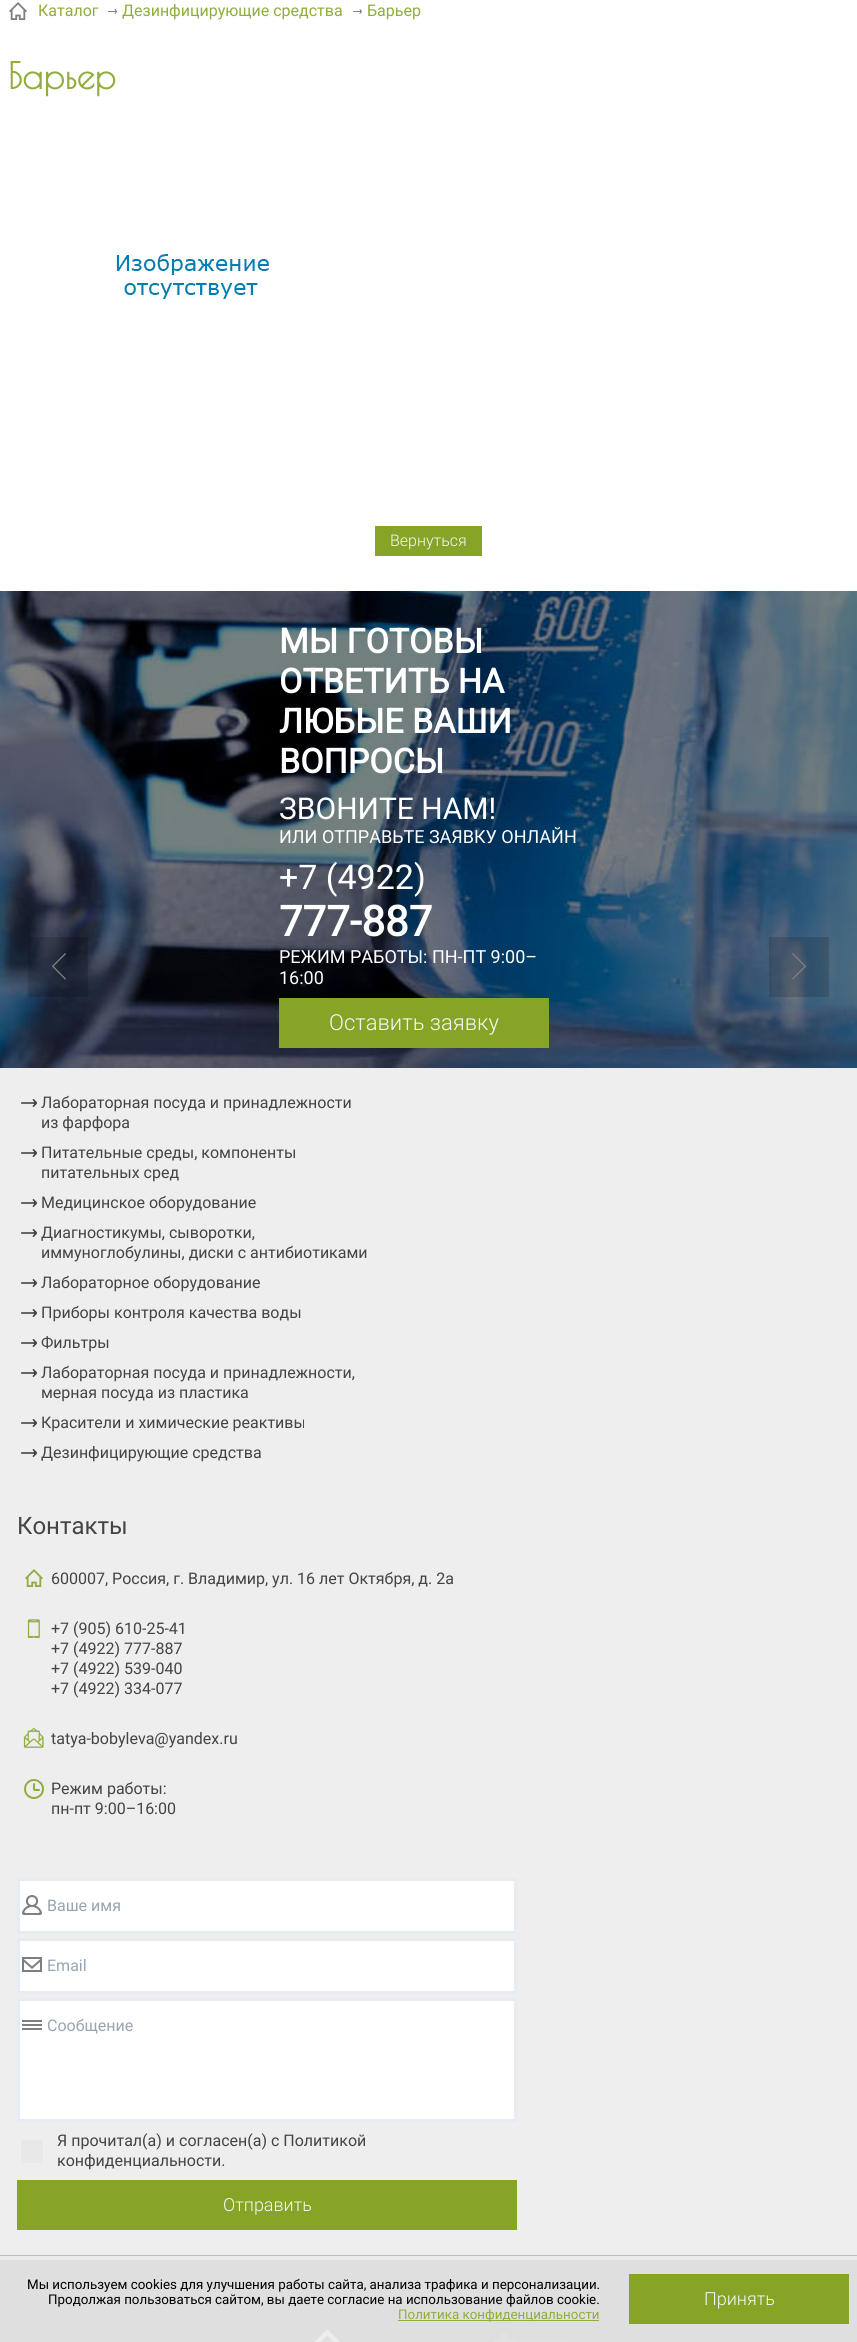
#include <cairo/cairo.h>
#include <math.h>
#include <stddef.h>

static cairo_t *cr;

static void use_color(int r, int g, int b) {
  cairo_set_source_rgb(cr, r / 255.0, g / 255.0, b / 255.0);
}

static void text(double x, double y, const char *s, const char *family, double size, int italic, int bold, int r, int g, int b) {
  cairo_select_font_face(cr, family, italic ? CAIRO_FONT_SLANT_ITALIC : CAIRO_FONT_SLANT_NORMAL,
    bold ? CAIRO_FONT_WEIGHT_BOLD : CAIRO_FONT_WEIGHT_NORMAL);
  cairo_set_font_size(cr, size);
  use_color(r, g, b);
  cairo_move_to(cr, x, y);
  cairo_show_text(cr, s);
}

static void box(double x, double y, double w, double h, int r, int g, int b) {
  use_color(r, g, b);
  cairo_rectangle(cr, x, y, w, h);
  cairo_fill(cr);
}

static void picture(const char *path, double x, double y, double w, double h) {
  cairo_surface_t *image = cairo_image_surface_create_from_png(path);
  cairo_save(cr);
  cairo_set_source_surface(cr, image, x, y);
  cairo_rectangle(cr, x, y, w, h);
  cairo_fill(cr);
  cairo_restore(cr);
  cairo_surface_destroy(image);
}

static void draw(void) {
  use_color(255, 255, 255);
  cairo_paint(cr);
  picture("img_01.png", 9, 2, 18, 18);
  picture("img_02.png", 108, 9, 9, 5);
  picture("img_02.png", 353, 9, 9, 5);
  picture("img_03.png", 116, 254, 153, 45);
  box(375, 526, 107, 30, 134, 165, 38);
  picture("img_06.png", 0, 591, 857, 477);
  cairo_set_source_rgba(cr, 0, 0, 0, 0.15);
  cairo_rectangle(cr, 28, 937, 60, 60);
  cairo_fill(cr);
  picture("img_04.png", 51, 953, 15, 27);
  cairo_rectangle(cr, 769, 937, 60, 60);
  cairo_fill(cr);
  picture("img_05.png", 792, 953, 14, 27);
  box(279, 998, 270, 50, 134, 165, 38);
  box(0, 1068, 857, 1187, 238, 238, 238);
  box(0, 2256, 857, 4, 235, 235, 235);
  picture("img_07.png", 21, 1099, 16, 8);
  picture("img_07.png", 21, 1149, 16, 8);
  picture("img_07.png", 21, 1199, 16, 8);
  picture("img_07.png", 21, 1229, 16, 8);
  picture("img_07.png", 21, 1279, 16, 8);
  picture("img_07.png", 21, 1309, 16, 8);
  picture("img_07.png", 21, 1339, 16, 8);
  picture("img_07.png", 21, 1369, 16, 8);
  picture("img_07.png", 21, 1419, 16, 8);
  picture("img_07.png", 21, 1449, 16, 8);
  picture("img_08.png", 25, 1569, 18, 18);
  picture("img_09.png", 27, 1619, 13, 19);
  picture("img_10.png", 23, 1728, 21, 20);
  picture("img_11.png", 24, 1779, 20, 20);
  use_color(255, 255, 255);
  cairo_rectangle(cr, 18.5, 1879.5, 497, 53);
  cairo_fill_preserve(cr);
  use_color(230, 236, 242);
  cairo_set_line_width(cr, 3);
  cairo_stroke(cr);
  picture("img_12.png", 22, 1895, 20, 20);
  use_color(255, 255, 255);
  cairo_rectangle(cr, 18.5, 1939.5, 497, 53);
  cairo_fill_preserve(cr);
  use_color(230, 236, 242);
  cairo_stroke(cr);
  picture("img_13.png", 22, 1957, 20, 15);
  use_color(255, 255, 255);
  cairo_rectangle(cr, 18.5, 1999.5, 497, 121);
  cairo_fill_preserve(cr);
  use_color(230, 236, 242);
  cairo_stroke(cr);
  picture("img_14.png", 22, 2020, 20, 10);
  box(21, 2140, 22, 23, 232, 232, 232);
  box(17, 2180, 500, 50, 134, 165, 38);
  box(0, 2260, 857, 82, 223, 223, 223);
  picture("img_15.png", 314, 2330, 26, 12);
  picture("img_16.png", 493, 2332, 81, 10);
  cairo_rectangle(cr, -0.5, 2255.5, 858, 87);
  use_color(190, 190, 190);
  cairo_set_line_width(cr, 1);
  cairo_stroke(cr);
  box(398, 2320, 201, 1, 145, 173, 59);
  box(629, 2274, 220, 50, 134, 165, 38);
  text(38, 16, "Каталог", "Roboto", 16, 0, 0, 145, 173, 59);
  text(122, 16, "Дезинфицирующие средства", "Roboto", 16, 0, 0, 145, 173, 59);
  text(367, 16, "Барьер", "Roboto", 16, 0, 0, 145, 173, 59);
  text(8, 89, "Барьер", "Poiret One", 36, 0, 1, 145, 173, 59);
  text(390, 546, "Вернуться", "Roboto Light", 16, 0, 0, 248, 248, 248);
  text(279, 653, "МЫ ГОТОВЫ", "Roboto", 34, 0, 1, 255, 255, 255);
  text(279, 693, "ОТВЕТИТЬ НА", "Roboto", 34, 0, 1, 255, 255, 255);
  text(279, 733, "ЛЮБЫЕ ВАШИ", "Roboto", 34, 0, 1, 255, 255, 255);
  text(279, 773, "ВОПРОСЫ", "Roboto", 34, 0, 1, 255, 255, 255);
  text(279, 819, "ЗВОНИТЕ НАМ!", "Roboto", 30, 0, 0, 255, 255, 255);
  text(279, 843, "ИЛИ ОТПРАВЬТЕ ЗАЯВКУ ОНЛАЙН", "Roboto", 18, 0, 0, 255, 255, 255);
  text(279, 889, "+7 (4922)", "Roboto", 34, 0, 0, 255, 255, 255);
  text(279, 936, "777-887", "Roboto", 42, 0, 1, 255, 255, 255);
  text(279, 963, "РЕЖИМ РАБОТЫ: ПН-ПТ 9:00–", "Roboto", 18, 0, 0, 255, 255, 255);
  text(279, 984, "16:00", "Roboto", 18, 0, 0, 255, 255, 255);
  text(329, 1030, "Оставить заявку", "Roboto Light", 22, 0, 0, 248, 248, 248);
  text(41, 1108, "Лабораторная посуда и принадлежности", "Roboto", 16, 0, 0, 68, 68, 68);
  text(41, 1128, "из фарфора", "Roboto", 16, 0, 0, 68, 68, 68);
  text(41, 1158, "Питательные среды, компоненты", "Roboto", 16, 0, 0, 68, 68, 68);
  text(41, 1178, "питательных сред", "Roboto", 16, 0, 0, 68, 68, 68);
  text(41, 1208, "Медицинское оборудование", "Roboto", 16, 0, 0, 68, 68, 68);
  text(41, 1238, "Диагностикумы, сыворотки,", "Roboto", 16, 0, 0, 68, 68, 68);
  text(41, 1258, "иммуноглобулины, диски с антибиотиками", "Roboto", 16, 0, 0, 68, 68, 68);
  text(41, 1288, "Лабораторное оборудование", "Roboto", 16, 0, 0, 68, 68, 68);
  text(41, 1318, "Приборы контроля качества воды", "Roboto", 16, 0, 0, 68, 68, 68);
  text(41, 1348, "Фильтры", "Roboto", 16, 0, 0, 68, 68, 68);
  text(41, 1378, "Лабораторная посуда и принадлежности,", "Roboto", 16, 0, 0, 68, 68, 68);
  text(41, 1398, "мерная посуда из пластика", "Roboto", 16, 0, 0, 68, 68, 68);
  text(41, 1428, "Красители и химические реактивы", "Roboto", 16, 0, 0, 68, 68, 68);
  text(41, 1458, "Дезинфицирующие средства", "Roboto", 16, 0, 0, 68, 68, 68);
  text(17, 1534, "Контакты", "Roboto", 24, 0, 0, 68, 68, 68);
  text(51, 1584, "600007, Россия, г. Владимир, ул. 16 лет Октября, д. 2а", "Roboto", 16, 0, 0, 68, 68, 68);
  text(51, 1634, "+7 (905) 610-25-41", "Roboto", 16, 0, 0, 68, 68, 68);
  text(51, 1654, "+7 (4922) 777-887", "Roboto", 16, 0, 0, 68, 68, 68);
  text(51, 1674, "+7 (4922) 539-040", "Roboto", 16, 0, 0, 68, 68, 68);
  text(51, 1694, "+7 (4922) 334-077", "Roboto", 16, 0, 0, 68, 68, 68);
  text(51, 1744, "tatya-bobyleva@yandex.ru", "Roboto", 16, 0, 0, 68, 68, 68);
  text(51, 1794, "Режим работы:", "Roboto", 16, 0, 0, 68, 68, 68);
  text(51, 1814, "пн-пт 9:00–16:00", "Roboto", 16, 0, 0, 68, 68, 68);
  text(47, 1911, "Ваше имя", "Roboto", 16, 0, 0, 151, 164, 177);
  text(47, 1971, "Email", "Roboto", 16, 0, 0, 151, 164, 177);
  text(47, 2031, "Сообщение", "Roboto", 16, 0, 0, 151, 164, 177);
  text(57, 2146, "Я прочитал(а) и согласен(а) с Политикой", "Roboto", 16, 0, 0, 68, 68, 68);
  text(57, 2166, "конфиденциальности.", "Roboto", 16, 0, 0, 68, 68, 68);
  text(223, 2211, "Отправить", "Roboto Light", 18, 0, 0, 248, 248, 248);
  text(27, 2289, "Мы используем cookies для улучшения работы сайта, анализа трафика и персонализации.", "Roboto", 13.35, 0, 0, 0, 0, 0);
  text(48, 2304, "Продолжая пользоваться сайтом, вы даете согласие на использование файлов cookie.", "Roboto", 13.35, 0, 0, 0, 0, 0);
  text(398, 2319, "Политика конфиденциальности", "Roboto", 13.35, 0, 0, 145, 173, 59);
  text(704, 2305, "Принять", "Roboto Light", 18, 0, 0, 248, 248, 248);
}

int main(void) {
  cairo_surface_t *surface = cairo_image_surface_create(CAIRO_FORMAT_RGB24, 857, 2342);
  cr = cairo_create(surface);
  cairo_font_options_t *options = cairo_font_options_create();
  cairo_font_options_set_hint_metrics(options, CAIRO_HINT_METRICS_OFF);
  cairo_font_options_set_hint_style(options, CAIRO_HINT_STYLE_NONE);
  cairo_set_font_options(cr, options);
  cairo_set_miter_limit(cr, 4);
  draw();
  cairo_surface_write_to_png(surface, "out.png");
  cairo_font_options_destroy(options);
  cairo_destroy(cr);
  cairo_surface_destroy(surface);
  return 0;
}
